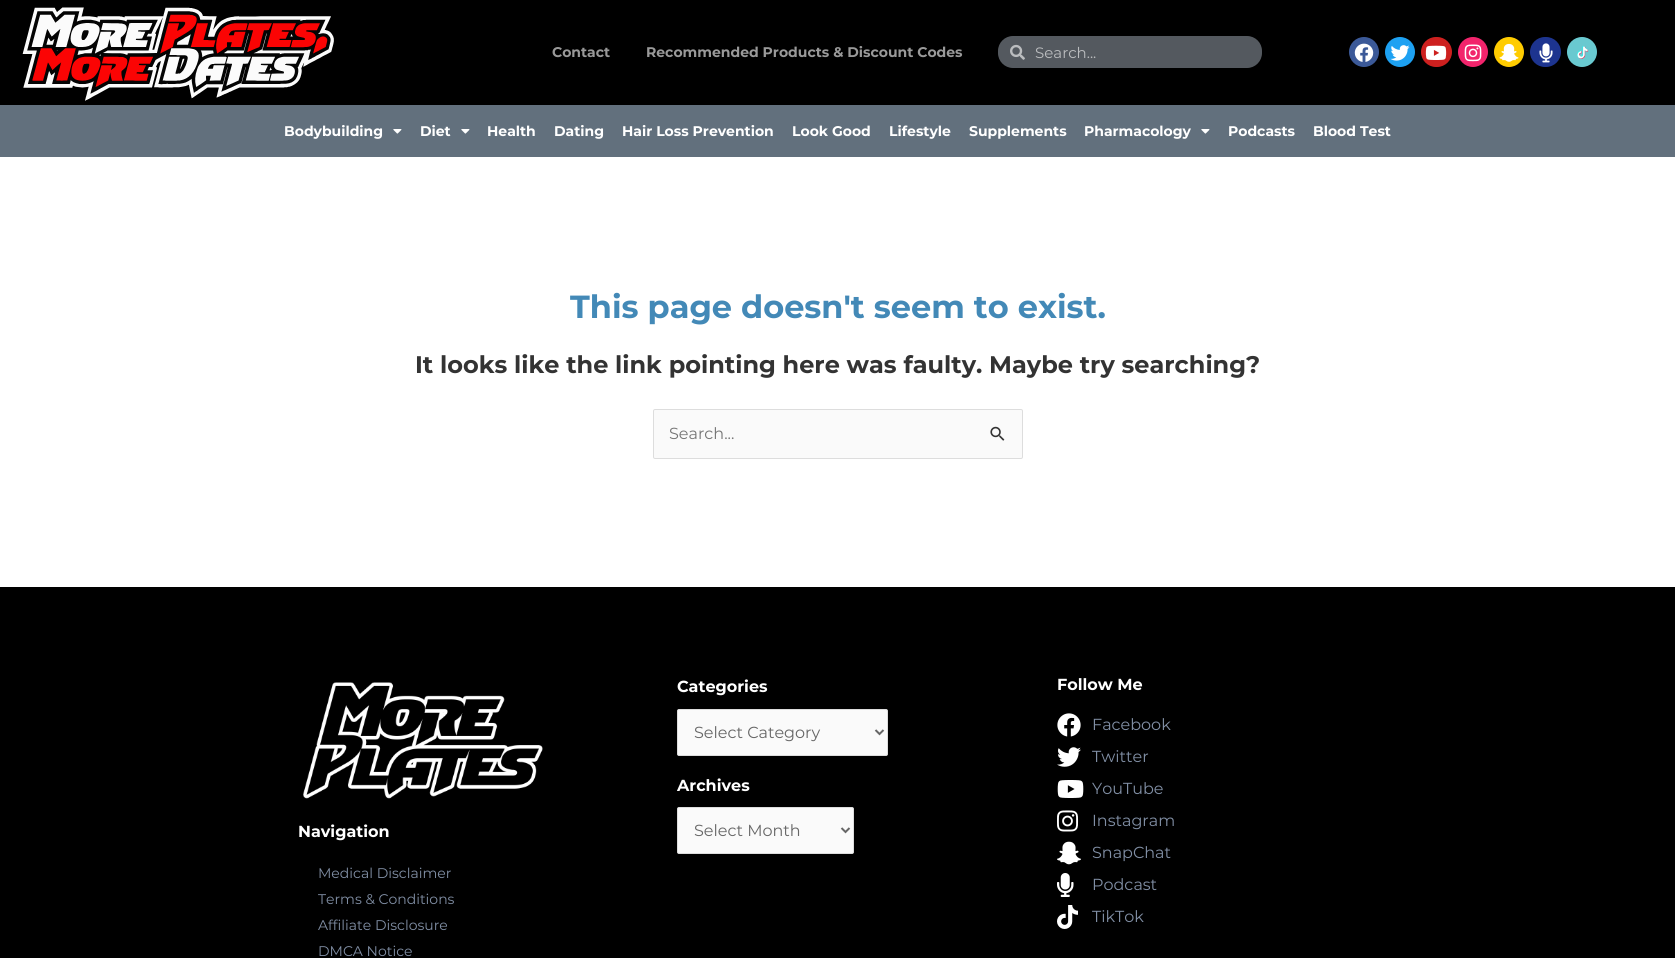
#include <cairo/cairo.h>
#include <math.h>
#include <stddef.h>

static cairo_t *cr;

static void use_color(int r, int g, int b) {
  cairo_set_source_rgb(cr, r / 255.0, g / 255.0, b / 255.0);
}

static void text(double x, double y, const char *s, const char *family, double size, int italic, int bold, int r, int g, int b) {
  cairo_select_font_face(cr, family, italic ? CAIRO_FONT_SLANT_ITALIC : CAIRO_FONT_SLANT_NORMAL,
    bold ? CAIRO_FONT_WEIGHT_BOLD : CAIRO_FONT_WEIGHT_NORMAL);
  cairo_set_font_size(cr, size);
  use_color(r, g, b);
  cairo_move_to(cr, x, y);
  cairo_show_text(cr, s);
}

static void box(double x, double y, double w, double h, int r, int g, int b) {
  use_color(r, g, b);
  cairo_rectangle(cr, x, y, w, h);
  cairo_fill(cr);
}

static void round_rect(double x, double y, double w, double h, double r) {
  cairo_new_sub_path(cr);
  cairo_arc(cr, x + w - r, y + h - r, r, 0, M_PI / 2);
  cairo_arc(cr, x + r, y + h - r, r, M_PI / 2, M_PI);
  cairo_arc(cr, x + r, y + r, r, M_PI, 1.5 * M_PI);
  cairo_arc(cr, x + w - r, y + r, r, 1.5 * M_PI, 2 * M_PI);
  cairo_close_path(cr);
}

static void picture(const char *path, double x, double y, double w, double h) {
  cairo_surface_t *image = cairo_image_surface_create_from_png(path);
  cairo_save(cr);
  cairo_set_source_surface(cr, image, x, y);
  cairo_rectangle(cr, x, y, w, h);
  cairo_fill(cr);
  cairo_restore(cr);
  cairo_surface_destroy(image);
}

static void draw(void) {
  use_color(255, 255, 255);
  cairo_paint(cr);
  box(0, 105, 1675, 52, 98, 112, 125);
  box(0, 0, 1675, 105, 0, 0, 0);
  picture("img_01.png", 22, 7, 312, 94);
  use_color(84, 89, 95);
  round_rect(998, 36, 264, 32, 15);
  cairo_fill(cr);
  picture("img_02.png", 1010, 44, 15, 16);
  use_color(59, 89, 152);
  cairo_arc(cr, 1364, 52, 15, 0, 2 * M_PI);
  cairo_fill(cr);
  picture("img_03.png", 1354, 43, 20, 19);
  use_color(29, 161, 242);
  cairo_arc(cr, 1400, 52, 15, 0, 2 * M_PI);
  cairo_fill(cr);
  picture("img_04.png", 1390, 45, 20, 16);
  use_color(205, 32, 31);
  round_rect(1421, 37, 31, 30, 15);
  cairo_fill(cr);
  picture("img_05.png", 1425, 45, 22, 15);
  use_color(242, 36, 108);
  cairo_arc(cr, 1473, 52, 15, 0, 2 * M_PI);
  cairo_fill(cr);
  picture("img_06.png", 1464, 44, 18, 18);
  use_color(255, 204, 0);
  cairo_arc(cr, 1509, 52, 15, 0, 2 * M_PI);
  cairo_fill(cr);
  picture("img_07.png", 1499, 43, 20, 19);
  use_color(29, 52, 143);
  round_rect(1530, 37, 31, 30, 15);
  cairo_fill(cr);
  picture("img_08.png", 1539, 43, 14, 20);
  use_color(105, 201, 208);
  cairo_arc(cr, 1582, 52, 15, 0, 2 * M_PI);
  cairo_fill(cr);
  picture("img_09.png", 1577, 46, 12, 13);
  picture("img_10.png", 393, 129, 9, 5);
  picture("img_10.png", 461, 129, 9, 5);
  picture("img_10.png", 1201, 129, 9, 5);
  use_color(250, 250, 250);
  round_rect(653.5, 409.5, 369, 49, 1.5);
  cairo_fill_preserve(cr);
  use_color(221, 221, 221);
  cairo_set_line_width(cr, 1);
  cairo_stroke(cr);
  picture("img_11.png", 990, 426, 15, 15);
  box(0, 587, 1675, 371, 0, 0, 0);
  use_color(250, 250, 250);
  round_rect(677.5, 709.5, 210, 46, 1.5);
  cairo_fill_preserve(cr);
  use_color(221, 221, 221);
  cairo_stroke(cr);
  cairo_new_path(cr);
  cairo_move_to(cr, 875.5, 730);
  cairo_line_to(cr, 879.5, 734);
  cairo_line_to(cr, 883.5, 730);
  use_color(102, 102, 102);
  cairo_set_line_width(cr, 2);
  cairo_stroke(cr);
  use_color(250, 250, 250);
  round_rect(677.5, 807.5, 176, 46, 1.5);
  cairo_fill_preserve(cr);
  use_color(221, 221, 221);
  cairo_set_line_width(cr, 1);
  cairo_stroke(cr);
  cairo_new_path(cr);
  cairo_move_to(cr, 841.5, 828);
  cairo_line_to(cr, 845.5, 832);
  cairo_line_to(cr, 849.5, 828);
  use_color(102, 102, 102);
  cairo_set_line_width(cr, 2);
  cairo_stroke(cr);
  picture("img_12.png", 1057, 713, 24, 24);
  picture("img_13.png", 1057, 747, 24, 20);
  picture("img_14.png", 1057, 780, 27, 18);
  picture("img_15.png", 1057, 810, 22, 22);
  picture("img_16.png", 1057, 841, 24, 24);
  picture("img_17.png", 1057, 873, 17, 24);
  picture("img_18.png", 1057, 905, 21, 24);
  picture("img_19.png", 303, 682, 240, 117);
  text(552, 57, "Contact", "Montserrat", 14, 0, 1, 153, 153, 153);
  text(646, 57, "Recommended Products & Discount Codes", "Montserrat", 14, 0, 1, 153, 153, 153);
  text(1035, 58, "Search...", "Montserrat", 15, 0, 0, 187, 189, 191);
  text(284, 136, "Bodybuilding", "Montserrat", 14, 0, 1, 255, 255, 255);
  text(420, 136, "Diet", "Montserrat", 14, 0, 1, 255, 255, 255);
  text(487, 136, "Health", "Montserrat", 14, 0, 1, 255, 255, 255);
  text(554, 136, "Dating", "Montserrat", 14, 0, 1, 255, 255, 255);
  text(622, 136, "Hair Loss Prevention", "Montserrat", 14, 0, 1, 255, 255, 255);
  text(792, 136, "Look Good", "Montserrat", 14, 0, 1, 255, 255, 255);
  text(889, 136, "Lifestyle", "Montserrat", 14, 0, 1, 255, 255, 255);
  text(969, 136, "Supplements", "Montserrat", 14, 0, 1, 255, 255, 255);
  text(1084, 136, "Pharmacology", "Montserrat", 14, 0, 1, 255, 255, 255);
  text(1228, 136, "Podcasts", "Montserrat", 14, 0, 1, 255, 255, 255);
  text(1313, 136, "Blood Test", "Montserrat", 14, 0, 1, 255, 255, 255);
  text(570, 318, "This page doesn't seem to exist.", "Montserrat", 32, 0, 1, 67, 137, 183);
  text(415, 373, "It looks like the link pointing here was faulty. Maybe try searching?", "Montserrat", 24, 0, 1, 51, 51, 51);
  text(669, 439, "Search...", "Montserrat", 16, 0, 0, 117, 117, 117);
  text(677, 692, "Categories", "Montserrat", 16, 0, 1, 255, 255, 255);
  text(694, 738, "Select Category", "Montserrat", 16, 0, 0, 102, 102, 102);
  text(677, 791, "Archives", "Montserrat", 16, 0, 1, 255, 255, 255);
  text(694, 836, "Select Month", "Montserrat", 16, 0, 0, 102, 102, 102);
  text(1057, 690, "Follow Me", "Montserrat", 16, 0, 1, 255, 255, 255);
  text(1092, 730, "Facebook", "Montserrat", 16, 0, 0, 129, 143, 165);
  text(1092, 762, "Twitter", "Montserrat", 16, 0, 0, 129, 143, 165);
  text(1092, 794, "YouTube", "Montserrat", 16, 0, 0, 129, 143, 165);
  text(1092, 826, "Instagram", "Montserrat", 16, 0, 0, 129, 143, 165);
  text(1092, 858, "SnapChat", "Montserrat", 16, 0, 0, 129, 143, 165);
  text(1092, 890, "Podcast", "Montserrat", 16, 0, 0, 129, 143, 165);
  text(1092, 922, "TikTok", "Montserrat", 16, 0, 0, 129, 143, 165);
  text(298, 837, "Navigation", "Montserrat", 16, 0, 1, 255, 255, 255);
  text(318, 878, "Medical Disclaimer", "Montserrat", 14, 0, 0, 129, 143, 165);
  text(318, 904, "Terms & Conditions", "Montserrat", 14, 0, 0, 129, 143, 165);
  text(318, 930, "Affiliate Disclosure", "Montserrat", 14, 0, 0, 129, 143, 165);
  text(318, 956, "DMCA Notice", "Montserrat", 14, 0, 0, 129, 143, 165);
}

int main(void) {
  cairo_surface_t *surface = cairo_image_surface_create(CAIRO_FORMAT_RGB24, 1675, 958);
  cr = cairo_create(surface);
  cairo_font_options_t *options = cairo_font_options_create();
  cairo_font_options_set_hint_metrics(options, CAIRO_HINT_METRICS_OFF);
  cairo_font_options_set_hint_style(options, CAIRO_HINT_STYLE_NONE);
  cairo_set_font_options(cr, options);
  cairo_set_miter_limit(cr, 4);
  draw();
  cairo_surface_write_to_png(surface, "out.png");
  cairo_font_options_destroy(options);
  cairo_destroy(cr);
  cairo_surface_destroy(surface);
  return 0;
}
